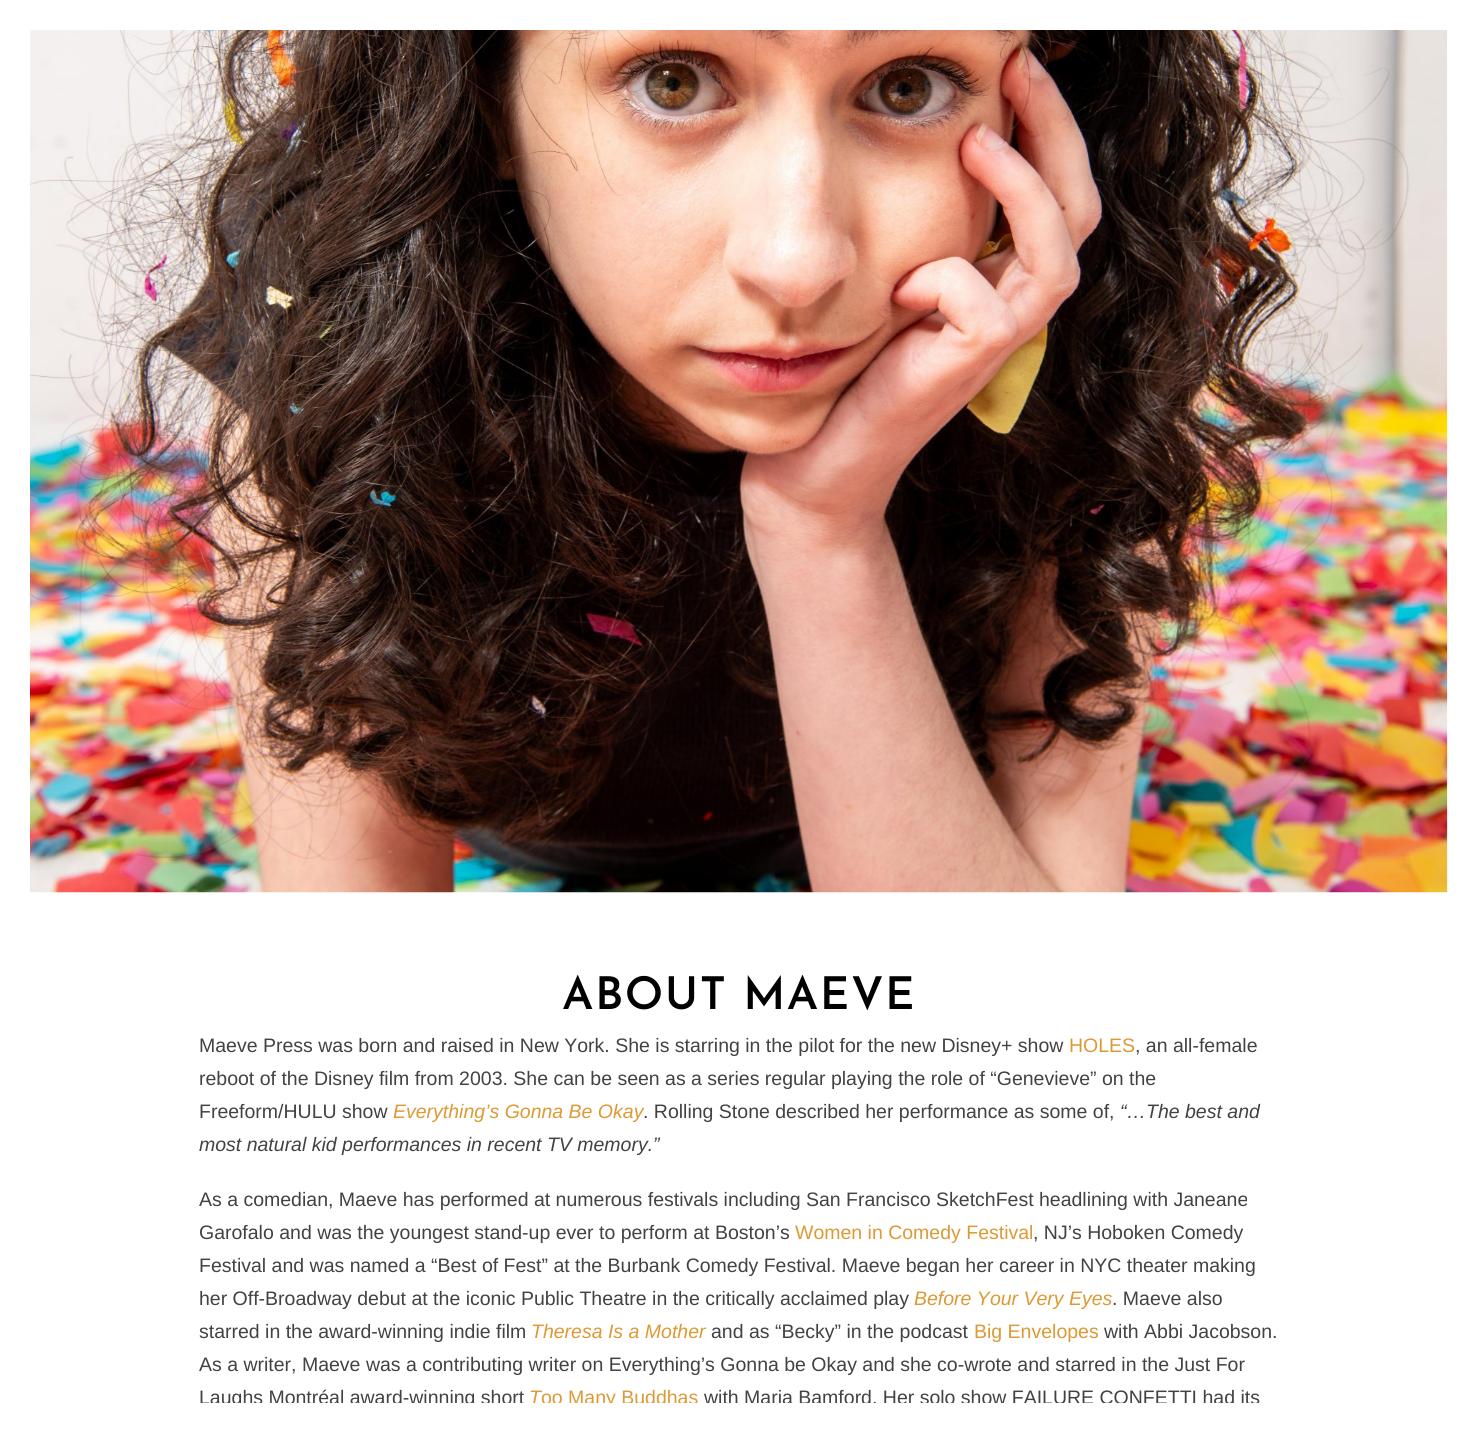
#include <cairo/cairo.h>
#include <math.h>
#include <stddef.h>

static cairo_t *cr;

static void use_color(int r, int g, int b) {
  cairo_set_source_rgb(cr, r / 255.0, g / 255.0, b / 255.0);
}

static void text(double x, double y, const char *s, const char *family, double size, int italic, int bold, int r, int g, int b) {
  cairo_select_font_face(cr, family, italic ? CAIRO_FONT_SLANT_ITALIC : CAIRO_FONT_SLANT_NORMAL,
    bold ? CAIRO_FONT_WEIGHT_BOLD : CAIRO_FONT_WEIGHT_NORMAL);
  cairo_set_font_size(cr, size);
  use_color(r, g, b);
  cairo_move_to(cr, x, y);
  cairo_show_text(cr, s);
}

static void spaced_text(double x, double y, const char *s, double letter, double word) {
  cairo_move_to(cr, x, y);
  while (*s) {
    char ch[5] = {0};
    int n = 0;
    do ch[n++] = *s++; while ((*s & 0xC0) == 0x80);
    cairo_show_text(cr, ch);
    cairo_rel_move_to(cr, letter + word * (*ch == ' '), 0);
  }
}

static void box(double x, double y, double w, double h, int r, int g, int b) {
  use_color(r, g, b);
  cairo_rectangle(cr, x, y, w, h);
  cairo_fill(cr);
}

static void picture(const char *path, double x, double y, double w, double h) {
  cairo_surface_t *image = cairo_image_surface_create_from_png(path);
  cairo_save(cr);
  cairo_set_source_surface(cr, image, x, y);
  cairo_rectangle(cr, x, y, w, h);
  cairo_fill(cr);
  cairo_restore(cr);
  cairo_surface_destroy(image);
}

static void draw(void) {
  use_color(255, 255, 255);
  cairo_paint(cr);
  picture("img_01.png", 30, 30, 1418, 863);
  cairo_select_font_face(cr, "Josefin Sans SemiBold", CAIRO_FONT_SLANT_NORMAL, CAIRO_FONT_WEIGHT_NORMAL);
  cairo_set_font_size(cr, 45);
  use_color(0, 0, 0);
  spaced_text(562, 1009, "ABOUT MAEVE", 1.5, 0);
  text(199, 1052, "Maeve Press was born and raised in New York. She is starring in the pilot for the new Disney+ show", "Liberation Sans", 19.5, 0, 0, 66, 66, 66);
  text(1069, 1052, "HOLES", "Liberation Sans", 19.5, 0, 0, 221, 153, 51);
  text(1135, 1052, ", an all-female", "Liberation Sans", 19.5, 0, 0, 66, 66, 66);
  text(199, 1085, "reboot of the Disney film from 2003. She can be seen as a series regular playing the role of “Genevieve” on the", "Liberation Sans", 19.5, 0, 0, 66, 66, 66);
  text(199, 1118, "Freeform/HULU show", "Liberation Sans", 19.5, 0, 0, 66, 66, 66);
  text(393, 1118, "Everything’s Gonna Be Okay", "Liberation Sans", 19.5, 1, 0, 221, 153, 51);
  text(643, 1118, ". Rolling Stone described her performance as some of,", "Liberation Sans", 19.5, 0, 0, 66, 66, 66);
  text(1120, 1118, "“…The best and", "Liberation Sans", 19.5, 1, 0, 66, 66, 66);
  text(199, 1151, "most natural kid performances in recent TV memory.”", "Liberation Sans", 19.5, 1, 0, 66, 66, 66);
  text(199, 1206, "As a comedian, Maeve has performed at numerous festivals including San Francisco SketchFest headlining with Janeane", "Liberation Sans", 19.5, 0, 0, 66, 66, 66);
  text(199, 1239, "Garofalo and was the youngest stand-up ever to perform at Boston’s", "Liberation Sans", 19.5, 0, 0, 66, 66, 66);
  text(795, 1239, "Women in Comedy Festival", "Liberation Sans", 19.5, 0, 0, 221, 153, 51);
  text(1033, 1239, ", NJ’s Hoboken Comedy", "Liberation Sans", 19.5, 0, 0, 66, 66, 66);
  text(199, 1272, "Festival and was named a “Best of Fest” at the Burbank Comedy Festival. Maeve began her career in NYC theater making", "Liberation Sans", 19.5, 0, 0, 66, 66, 66);
  text(199, 1305, "her Off-Broadway debut at the iconic Public Theatre in the critically acclaimed play", "Liberation Sans", 19.5, 0, 0, 66, 66, 66);
  text(914, 1305, "Before Your Very Eyes", "Liberation Sans", 19.5, 1, 0, 221, 153, 51);
  text(1112, 1305, ". Maeve also", "Liberation Sans", 19.5, 0, 0, 66, 66, 66);
  text(199, 1338, "starred in the award-winning indie film", "Liberation Sans", 19.5, 0, 0, 66, 66, 66);
  text(531, 1338, "Theresa Is a Mother", "Liberation Sans", 19.5, 1, 0, 221, 153, 51);
  text(711, 1338, "and as “Becky” in the podcast", "Liberation Sans", 19.5, 0, 0, 66, 66, 66);
  text(974, 1338, "Big Envelopes", "Liberation Sans", 19.5, 0, 0, 221, 153, 51);
  text(1104, 1338, "with Abbi Jacobson.", "Liberation Sans", 19.5, 0, 0, 66, 66, 66);
  text(199, 1371, "As a writer, Maeve was a contributing writer on Everything’s Gonna be Okay and she co-wrote and starred in the Just For", "Liberation Sans", 19.5, 0, 0, 66, 66, 66);
  text(199, 1404, "Laughs Montréal award-winning short", "Liberation Sans", 19.5, 0, 0, 66, 66, 66);
  text(529, 1404, "T", "Liberation Sans", 19.5, 1, 0, 221, 153, 51);
  text(541, 1404, "oo Many Buddhas", "Liberation Sans", 19.5, 0, 0, 221, 153, 51);
  text(704, 1404, "with Maria Bamford. Her solo show FAILURE CONFETTI had its", "Liberation Sans", 19.5, 0, 0, 66, 66, 66);
  box(200, 1403, 1059, 6, 255, 255, 255);
}

int main(void) {
  cairo_surface_t *surface = cairo_image_surface_create(CAIRO_FORMAT_RGB24, 1477, 1432);
  cr = cairo_create(surface);
  cairo_font_options_t *options = cairo_font_options_create();
  cairo_font_options_set_hint_metrics(options, CAIRO_HINT_METRICS_OFF);
  cairo_font_options_set_hint_style(options, CAIRO_HINT_STYLE_NONE);
  cairo_set_font_options(cr, options);
  cairo_set_miter_limit(cr, 4);
  draw();
  cairo_surface_write_to_png(surface, "out.png");
  cairo_font_options_destroy(options);
  cairo_destroy(cr);
  cairo_surface_destroy(surface);
  return 0;
}
